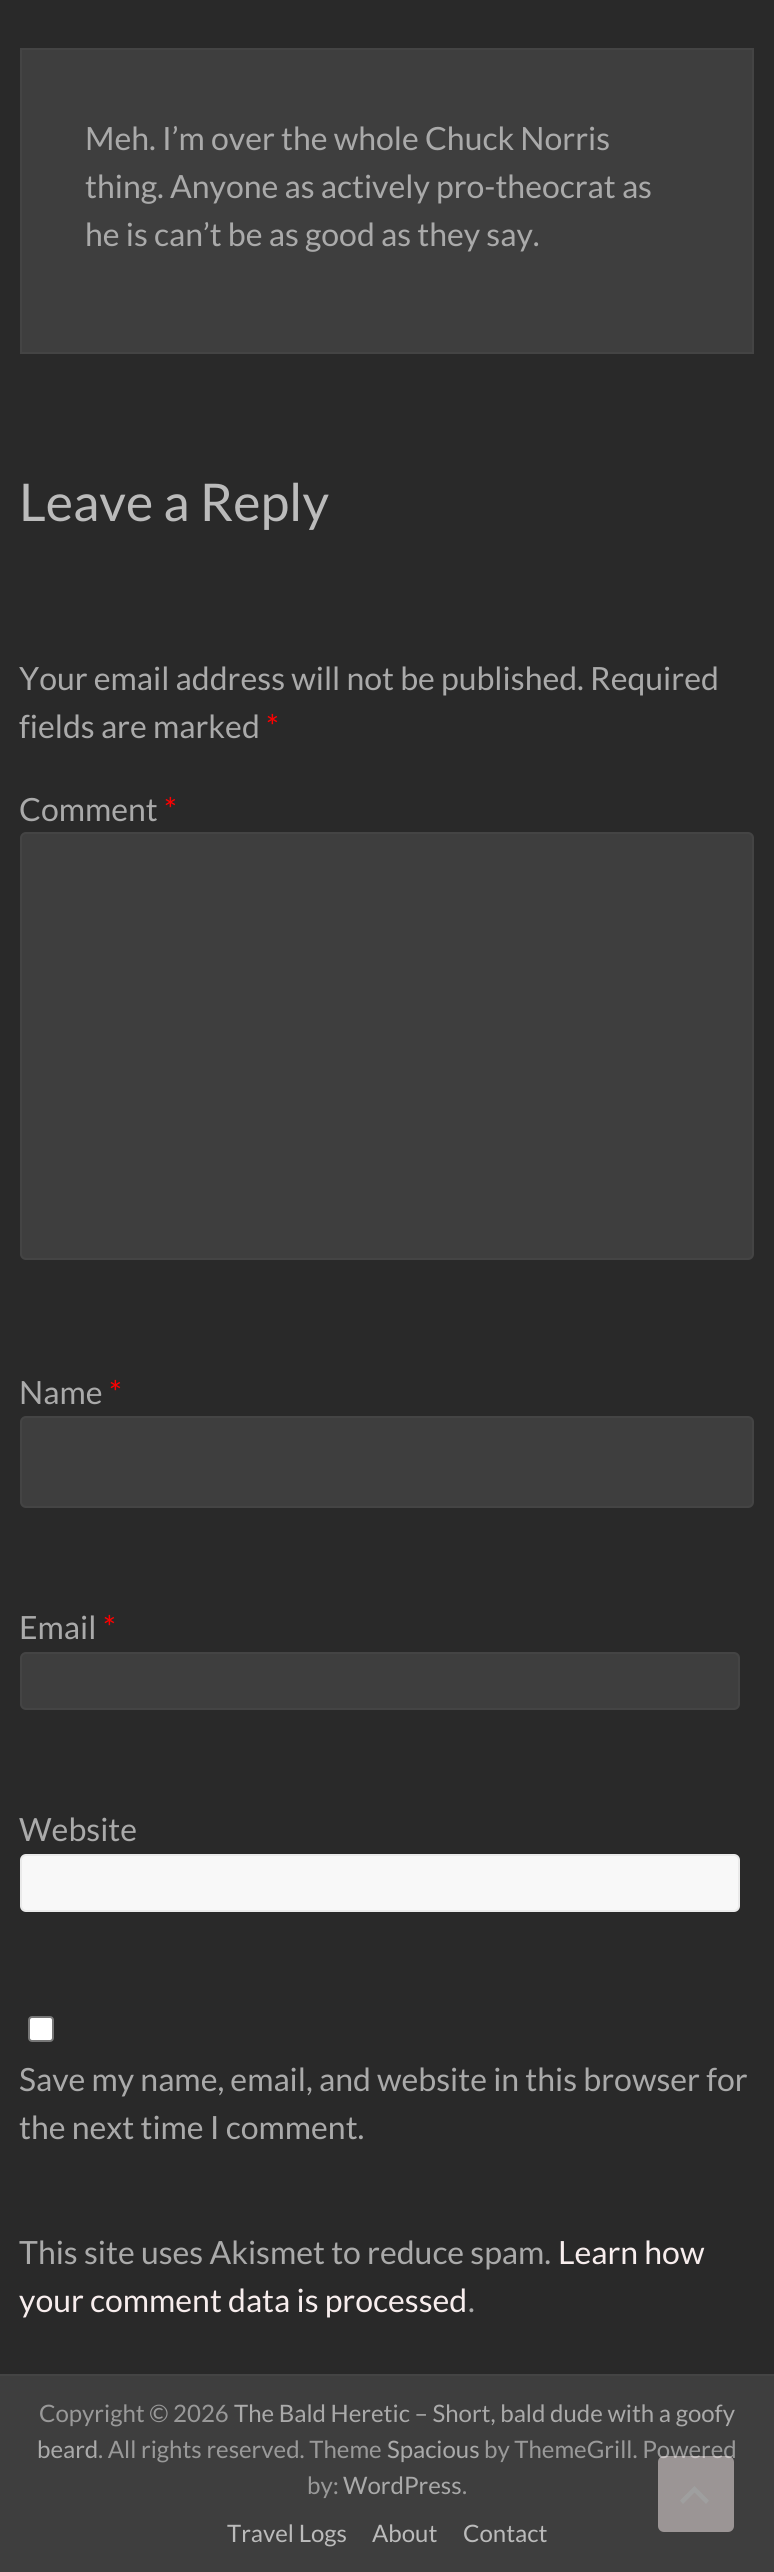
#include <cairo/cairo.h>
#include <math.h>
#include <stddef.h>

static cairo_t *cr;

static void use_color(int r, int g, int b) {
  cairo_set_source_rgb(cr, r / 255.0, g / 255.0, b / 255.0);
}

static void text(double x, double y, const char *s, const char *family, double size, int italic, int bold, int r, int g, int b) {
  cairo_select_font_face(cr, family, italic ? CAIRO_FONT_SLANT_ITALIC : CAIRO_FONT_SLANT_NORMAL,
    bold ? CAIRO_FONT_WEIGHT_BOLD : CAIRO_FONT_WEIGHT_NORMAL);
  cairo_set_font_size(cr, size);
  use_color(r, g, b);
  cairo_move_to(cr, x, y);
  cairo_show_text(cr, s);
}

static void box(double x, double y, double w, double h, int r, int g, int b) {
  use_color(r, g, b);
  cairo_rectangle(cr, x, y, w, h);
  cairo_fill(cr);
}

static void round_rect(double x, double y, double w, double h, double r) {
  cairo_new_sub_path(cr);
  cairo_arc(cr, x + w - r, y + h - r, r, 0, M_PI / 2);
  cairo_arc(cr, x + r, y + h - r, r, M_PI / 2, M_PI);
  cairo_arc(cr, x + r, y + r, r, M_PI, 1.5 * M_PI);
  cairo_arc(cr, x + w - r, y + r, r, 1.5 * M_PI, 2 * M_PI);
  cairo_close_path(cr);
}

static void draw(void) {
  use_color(41, 41, 41);
  cairo_paint(cr);
  use_color(62, 62, 62);
  cairo_rectangle(cr, 21, 49, 732, 304);
  cairo_fill_preserve(cr);
  use_color(68, 68, 68);
  cairo_stroke(cr);
  use_color(62, 62, 62);
  round_rect(21, 833, 732, 426, 5);
  cairo_fill_preserve(cr);
  use_color(68, 68, 68);
  cairo_stroke(cr);
  use_color(62, 62, 62);
  round_rect(21, 1417, 732, 90, 5);
  cairo_fill_preserve(cr);
  use_color(68, 68, 68);
  cairo_stroke(cr);
  use_color(62, 62, 62);
  round_rect(21, 1653, 718, 56, 5);
  cairo_fill_preserve(cr);
  use_color(68, 68, 68);
  cairo_stroke(cr);
  use_color(248, 248, 248);
  round_rect(21, 1855, 718, 56, 5);
  cairo_fill_preserve(cr);
  use_color(234, 234, 234);
  cairo_stroke(cr);
  use_color(255, 255, 255);
  round_rect(29, 2017, 24, 24, 3);
  cairo_fill_preserve(cr);
  use_color(118, 118, 118);
  cairo_stroke(cr);
  box(0, 2376, 774, 196, 62, 62, 62);
  box(0, 2374, 774, 2, 68, 68, 68);
  text(85, 150, "Meh. I’m over the whole Chuck Norris", "Lato", 32, 0, 0, 170, 170, 170);
  text(85, 198, "thing. Anyone as actively pro-theocrat as", "Lato", 32, 0, 0, 170, 170, 170);
  text(85, 246, "he is can’t be as good as they say.", "Lato", 32, 0, 0, 170, 170, 170);
  text(19, 521, "Leave a Reply", "Lato", 52, 0, 0, 187, 187, 187);
  text(19, 690, "Your email address will not be published. Required", "Lato", 32, 0, 0, 170, 170, 170);
  text(19, 738, "fields are marked", "Lato", 32, 0, 0, 170, 170, 170);
  text(266, 738, "*", "Lato", 32, 0, 0, 255, 0, 0);
  text(19, 821, "Comment", "Lato", 32, 0, 0, 170, 170, 170);
  text(164, 821, "*", "Lato", 32, 0, 0, 255, 0, 0);
  text(19, 1404, "Name", "Lato", 32, 0, 0, 170, 170, 170);
  text(109, 1404, "*", "Lato", 32, 0, 0, 255, 0, 0);
  text(19, 1639, "Email", "Lato", 32, 0, 0, 170, 170, 170);
  text(103, 1639, "*", "Lato", 32, 0, 0, 255, 0, 0);
  text(19, 1841, "Website", "Lato", 32, 0, 0, 170, 170, 170);
  text(19, 2091, "Save my name, email, and website in this browser for", "Lato", 32, 0, 0, 170, 170, 170);
  text(19, 2139, "the next time I comment.", "Lato", 32, 0, 0, 170, 170, 170);
  text(19, 2264, "This site uses Akismet to reduce spam.", "Lato", 32, 0, 0, 170, 170, 170);
  text(558, 2264, "Learn how", "Lato", 32, 0, 0, 247, 237, 237);
  text(19, 2312, "your comment data is processed", "Lato", 32, 0, 0, 247, 237, 237);
  text(468, 2312, ".", "Lato", 32, 0, 0, 170, 170, 170);
  text(39, 2422, "Copyright © 2026", "Lato", 24, 0, 0, 153, 153, 153);
  text(234, 2422, "The Bald Heretic – Short, bald dude with a goofy", "Lato", 24, 0, 0, 170, 170, 170);
  text(37, 2458, "beard", "Lato", 24, 0, 0, 170, 170, 170);
  text(98, 2458, ". All rights reserved. Theme", "Lato", 24, 0, 0, 153, 153, 153);
  text(387, 2458, "Spacious", "Lato", 24, 0, 0, 170, 170, 170);
  text(484, 2458, "by ThemeGrill. Powered", "Lato", 24, 0, 0, 153, 153, 153);
  text(307, 2494, "by:", "Lato", 24, 0, 0, 153, 153, 153);
  text(343, 2494, "WordPress", "Lato", 24, 0, 0, 170, 170, 170);
  text(462, 2494, ".", "Lato", 24, 0, 0, 153, 153, 153);
  text(227, 2542, "Travel Logs", "Lato", 24, 0, 0, 187, 187, 187);
  text(372, 2542, "About", "Lato", 24, 0, 0, 187, 187, 187);
  text(463, 2542, "Contact", "Lato", 24, 0, 0, 187, 187, 187);
  cairo_set_source_rgba(cr, 0.969, 0.929, 0.929, 0.5);
  round_rect(658, 2456, 76, 76, 6);
  cairo_fill(cr);
  use_color(159, 159, 159);
  cairo_new_path(cr);
  cairo_move_to(cr, 706, 2504);
  cairo_line_to(cr, 694.5, 2492.5);
  cairo_line_to(cr, 683, 2504);
  cairo_line_to(cr, 680, 2500.5);
  cairo_line_to(cr, 694.5, 2486);
  cairo_line_to(cr, 709, 2500.5);
  cairo_close_path(cr);
  cairo_fill(cr);
}

int main(void) {
  cairo_surface_t *surface = cairo_image_surface_create(CAIRO_FORMAT_RGB24, 774, 2572);
  cr = cairo_create(surface);
  cairo_font_options_t *options = cairo_font_options_create();
  cairo_font_options_set_hint_metrics(options, CAIRO_HINT_METRICS_OFF);
  cairo_font_options_set_hint_style(options, CAIRO_HINT_STYLE_NONE);
  cairo_set_font_options(cr, options);
  cairo_set_miter_limit(cr, 4);
  draw();
  cairo_surface_write_to_png(surface, "out.png");
  cairo_font_options_destroy(options);
  cairo_destroy(cr);
  cairo_surface_destroy(surface);
  return 0;
}
